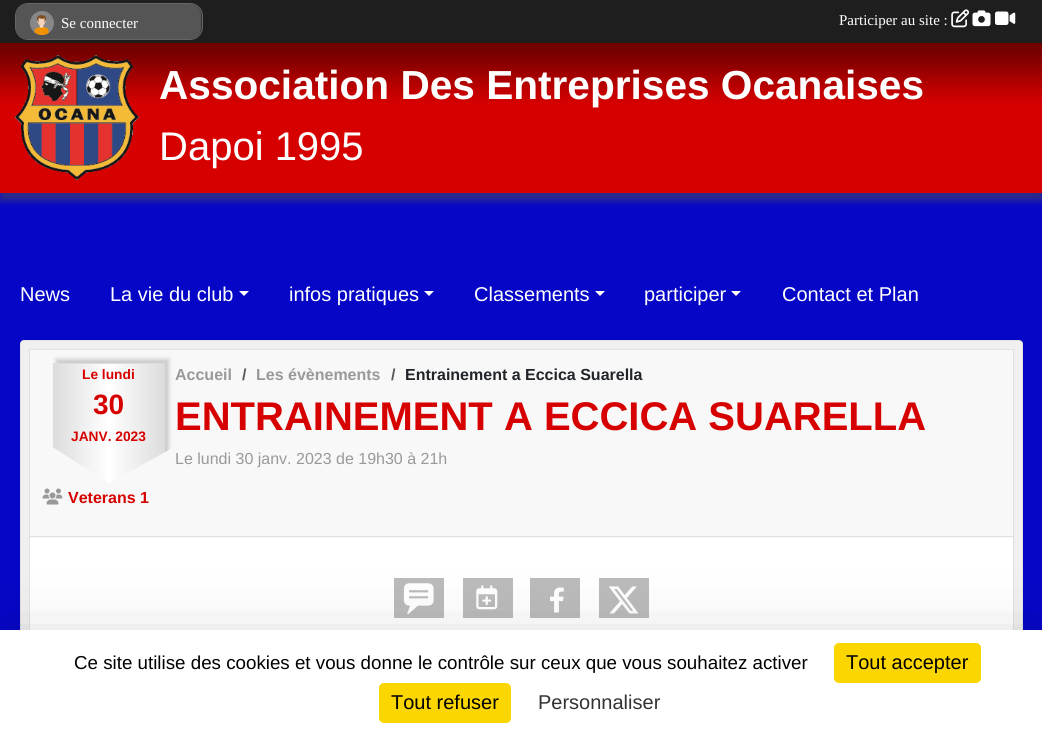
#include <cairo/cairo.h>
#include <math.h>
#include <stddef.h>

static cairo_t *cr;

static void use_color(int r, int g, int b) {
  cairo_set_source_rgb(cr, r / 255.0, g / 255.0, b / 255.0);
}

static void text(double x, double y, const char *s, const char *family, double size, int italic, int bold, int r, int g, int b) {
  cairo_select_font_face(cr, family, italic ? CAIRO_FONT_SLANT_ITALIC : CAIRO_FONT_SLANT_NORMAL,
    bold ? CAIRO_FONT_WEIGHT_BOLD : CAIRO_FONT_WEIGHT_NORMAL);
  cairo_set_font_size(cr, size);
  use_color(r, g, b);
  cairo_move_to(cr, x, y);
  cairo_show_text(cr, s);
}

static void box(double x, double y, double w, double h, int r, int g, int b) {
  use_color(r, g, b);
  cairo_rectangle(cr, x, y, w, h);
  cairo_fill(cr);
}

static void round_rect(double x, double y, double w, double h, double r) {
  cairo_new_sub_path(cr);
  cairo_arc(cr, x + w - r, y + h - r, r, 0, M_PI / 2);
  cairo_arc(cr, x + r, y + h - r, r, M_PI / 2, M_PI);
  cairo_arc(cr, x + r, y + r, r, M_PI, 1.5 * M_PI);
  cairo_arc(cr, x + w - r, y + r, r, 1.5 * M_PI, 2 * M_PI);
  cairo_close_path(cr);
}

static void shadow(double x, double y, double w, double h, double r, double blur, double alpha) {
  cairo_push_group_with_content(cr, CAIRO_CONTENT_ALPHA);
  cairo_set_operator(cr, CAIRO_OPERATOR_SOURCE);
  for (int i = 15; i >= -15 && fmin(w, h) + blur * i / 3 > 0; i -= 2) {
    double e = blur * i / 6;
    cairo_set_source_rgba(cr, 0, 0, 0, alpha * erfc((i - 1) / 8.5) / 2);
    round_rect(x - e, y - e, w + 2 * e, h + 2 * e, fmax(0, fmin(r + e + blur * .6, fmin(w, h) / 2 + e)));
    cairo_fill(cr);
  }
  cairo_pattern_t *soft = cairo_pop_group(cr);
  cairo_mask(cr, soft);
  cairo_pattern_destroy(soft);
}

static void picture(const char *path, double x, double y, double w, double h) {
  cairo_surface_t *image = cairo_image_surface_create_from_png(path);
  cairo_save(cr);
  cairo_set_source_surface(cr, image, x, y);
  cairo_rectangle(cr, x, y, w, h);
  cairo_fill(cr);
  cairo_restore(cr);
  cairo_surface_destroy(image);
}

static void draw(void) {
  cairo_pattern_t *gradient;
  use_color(6, 6, 199);
  cairo_paint(cr);
  use_color(80, 80, 80);
  shadow(0, 51, 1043, 150, 0, 3, 0.5);
  box(0, 0, 1042, 43, 30, 30, 30);
  use_color(51, 51, 51);
  round_rect(15.5, 3.5, 187, 36, 12.5);
  cairo_fill_preserve(cr);
  use_color(102, 102, 102);
  cairo_set_line_width(cr, 1);
  cairo_stroke(cr);
  use_color(85, 85, 85);
  round_rect(16, 4, 185, 35, 11);
  cairo_fill(cr);
  picture("img_01.png", 30, 11, 24, 24);
  picture("img_02.png", 951, 9, 19, 19);
  picture("img_03.png", 972, 10, 19, 17);
  picture("img_04.png", 995, 11, 21, 14);
  box(0, 43, 1042, 150, 214, 0, 0);
  picture("img_05.png", 0, 43, 1042, 59);
  picture("img_06.png", 15, 55, 124, 125);
  use_color(255, 255, 255);
  cairo_new_path(cr);
  cairo_move_to(cr, 239, 291);
  cairo_line_to(cr, 249, 291);
  cairo_line_to(cr, 244, 296);
  cairo_close_path(cr);
  cairo_fill(cr);
  cairo_new_path(cr);
  cairo_move_to(cr, 424, 291);
  cairo_line_to(cr, 434, 291);
  cairo_line_to(cr, 429, 296);
  cairo_close_path(cr);
  cairo_fill(cr);
  cairo_new_path(cr);
  cairo_move_to(cr, 595, 291);
  cairo_line_to(cr, 605, 291);
  cairo_line_to(cr, 600, 296);
  cairo_close_path(cr);
  cairo_fill(cr);
  cairo_new_path(cr);
  cairo_move_to(cr, 731, 291);
  cairo_line_to(cr, 741, 291);
  cairo_line_to(cr, 736, 296);
  cairo_close_path(cr);
  cairo_fill(cr);
  use_color(240, 240, 240);
  round_rect(20.5, 340.5, 1002, 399, 3.5);
  cairo_fill_preserve(cr);
  use_color(225, 225, 225);
  cairo_stroke(cr);
  box(30, 538, 983, 92, 255, 255, 255);
  cairo_rectangle(cr, 29.5, 349.5, 984, 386);
  use_color(225, 225, 225);
  cairo_stroke(cr);
  box(30, 350, 983, 188, 248, 248, 248);
  box(30, 536, 983, 1, 225, 225, 225);
  use_color(204, 204, 204);
  shadow(56, 359, 113, 121, 0, 2, 1);
  gradient = cairo_pattern_create_linear(-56, 424, 54, 424);
  cairo_pattern_add_color_stop_rgba(gradient, 0, 0.867, 0.867, 0.867, 1);
  cairo_pattern_add_color_stop_rgba(gradient, 0.5, 1, 1, 1, 1);
  cairo_pattern_add_color_stop_rgba(gradient, 1, 0.867, 0.867, 0.867, 1);
  cairo_set_source(cr, gradient);
  cairo_pattern_destroy(gradient);
  cairo_rectangle(cr, 53, 363, 1, 85);
  cairo_fill(cr);
  gradient = cairo_pattern_create_linear(54, 424, 164, 424);
  cairo_pattern_add_color_stop_rgba(gradient, 0, 0.867, 0.867, 0.867, 1);
  cairo_pattern_add_color_stop_rgba(gradient, 0.5, 1, 1, 1, 1);
  cairo_pattern_add_color_stop_rgba(gradient, 1, 0.867, 0.867, 0.867, 1);
  cairo_set_source(cr, gradient);
  cairo_pattern_destroy(gradient);
  cairo_rectangle(cr, 54, 364, 110, 120);
  cairo_fill(cr);
  gradient = cairo_pattern_create_linear(164, 424, 274, 424);
  cairo_pattern_add_color_stop_rgba(gradient, 0, 0.867, 0.867, 0.867, 1);
  cairo_pattern_add_color_stop_rgba(gradient, 0.5, 1, 1, 1, 1);
  cairo_pattern_add_color_stop_rgba(gradient, 1, 0.867, 0.867, 0.867, 1);
  cairo_set_source(cr, gradient);
  cairo_pattern_destroy(gradient);
  cairo_rectangle(cr, 164, 363, 1, 90);
  cairo_fill(cr);
  box(53, 363, 112, 1, 221, 221, 221);
  use_color(248, 248, 248);
  cairo_new_path(cr);
  cairo_move_to(cr, 51, 484);
  cairo_line_to(cr, 51, 446);
  cairo_line_to(cr, 110, 484);
  cairo_close_path(cr);
  cairo_fill(cr);
  cairo_new_path(cr);
  cairo_move_to(cr, 176, 446);
  cairo_line_to(cr, 176, 484);
  cairo_line_to(cr, 108, 484);
  cairo_close_path(cr);
  cairo_fill(cr);
  picture("img_07.png", 42, 488, 21, 17);
  box(394, 578, 50, 40, 187, 187, 187);
  picture("img_08.png", 403, 583, 31, 32);
  box(463, 578, 50, 40, 187, 187, 187);
  picture("img_09.png", 476, 585, 22, 25);
  box(530, 578, 50, 40, 187, 187, 187);
  picture("img_10.png", 550, 587, 14, 26);
  box(599, 578, 50, 40, 187, 187, 187);
  picture("img_11.png", 609, 586, 30, 28);
  use_color(0, 0, 0);
  shadow(0, 655, 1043, 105, 0, 37.5, 0.25);
  box(0, 630, 1042, 105, 255, 255, 255);
  use_color(251, 214, 0);
  round_rect(834, 643, 147, 40, 5);
  cairo_fill(cr);
  round_rect(379, 683, 132, 40, 5);
  cairo_fill(cr);
  text(61, 28, "Se connecter", "Liberation Serif", 15, 0, 0, 255, 255, 255);
  text(839, 25, "Participer au site :", "Liberation Serif", 15, 0, 0, 255, 255, 255);
  text(159, 99, "Association Des Entreprises Ocanaises", "Liberation Sans", 40.6, 0, 1, 255, 255, 255);
  text(159, 160, "Dapoi 1995", "Liberation Sans", 40, 0, 0, 255, 255, 255);
  text(20, 301, "News", "Liberation Sans", 20, 0, 0, 255, 255, 255);
  text(110, 301, "La vie du club", "Liberation Sans", 20, 0, 0, 255, 255, 255);
  text(289, 301, "infos pratiques", "Liberation Sans", 20, 0, 0, 255, 255, 255);
  text(474, 301, "Classements", "Liberation Sans", 20, 0, 0, 255, 255, 255);
  text(644, 301, "participer", "Liberation Sans", 20, 0, 0, 255, 255, 255);
  text(782, 301, "Contact et Plan", "Liberation Sans", 20, 0, 0, 255, 255, 255);
  text(82, 379, "Le lundi", "Liberation Sans", 13.75, 0, 1, 214, 0, 0);
  text(93, 414, "30", "Liberation Sans", 28, 0, 1, 214, 0, 0);
  text(71, 441, "JANV. 2023", "Liberation Sans", 13.75, 0, 1, 214, 0, 0);
  text(175, 380, "Accueil", "Liberation Sans", 16, 0, 1, 153, 153, 153);
  text(242, 380, "/", "Liberation Sans", 16, 0, 1, 87, 90, 93);
  text(256, 380, "Les évènements", "Liberation Sans", 16, 0, 1, 153, 153, 153);
  text(391, 380, "/", "Liberation Sans", 16, 0, 1, 87, 90, 93);
  text(405, 380, "Entrainement a Eccica Suarella", "Liberation Sans", 16, 0, 1, 33, 37, 41);
  text(175, 430, "ENTRAINEMENT A ECCICA SUARELLA", "Liberation Sans", 40, 0, 1, 214, 0, 0);
  text(175, 464, "Le lundi 30 janv. 2023 de 19h30 à 21h", "Liberation Sans", 16, 0, 0, 153, 153, 153);
  text(68, 503, "Veterans 1", "Liberation Sans", 16, 0, 1, 214, 0, 0);
  text(74, 669, "Ce site utilise des cookies et vous donne le contrôle sur ceux que vous souhaitez activer", "Liberation Sans", 18.75, 0, 0, 0, 0, 0);
  text(846, 669, "Tout accepter", "Liberation Sans", 20, 0, 0, 0, 0, 0);
  text(391, 709, "Tout refuser", "Liberation Sans", 20, 0, 0, 0, 0, 0);
  text(538, 709, "Personnaliser", "Liberation Sans", 20, 0, 0, 51, 51, 51);
}

int main(void) {
  cairo_surface_t *surface = cairo_image_surface_create(CAIRO_FORMAT_RGB24, 1042, 735);
  cr = cairo_create(surface);
  cairo_font_options_t *options = cairo_font_options_create();
  cairo_font_options_set_hint_metrics(options, CAIRO_HINT_METRICS_OFF);
  cairo_font_options_set_hint_style(options, CAIRO_HINT_STYLE_NONE);
  cairo_set_font_options(cr, options);
  cairo_set_miter_limit(cr, 4);
  draw();
  cairo_surface_write_to_png(surface, "out.png");
  cairo_font_options_destroy(options);
  cairo_destroy(cr);
  cairo_surface_destroy(surface);
  return 0;
}
